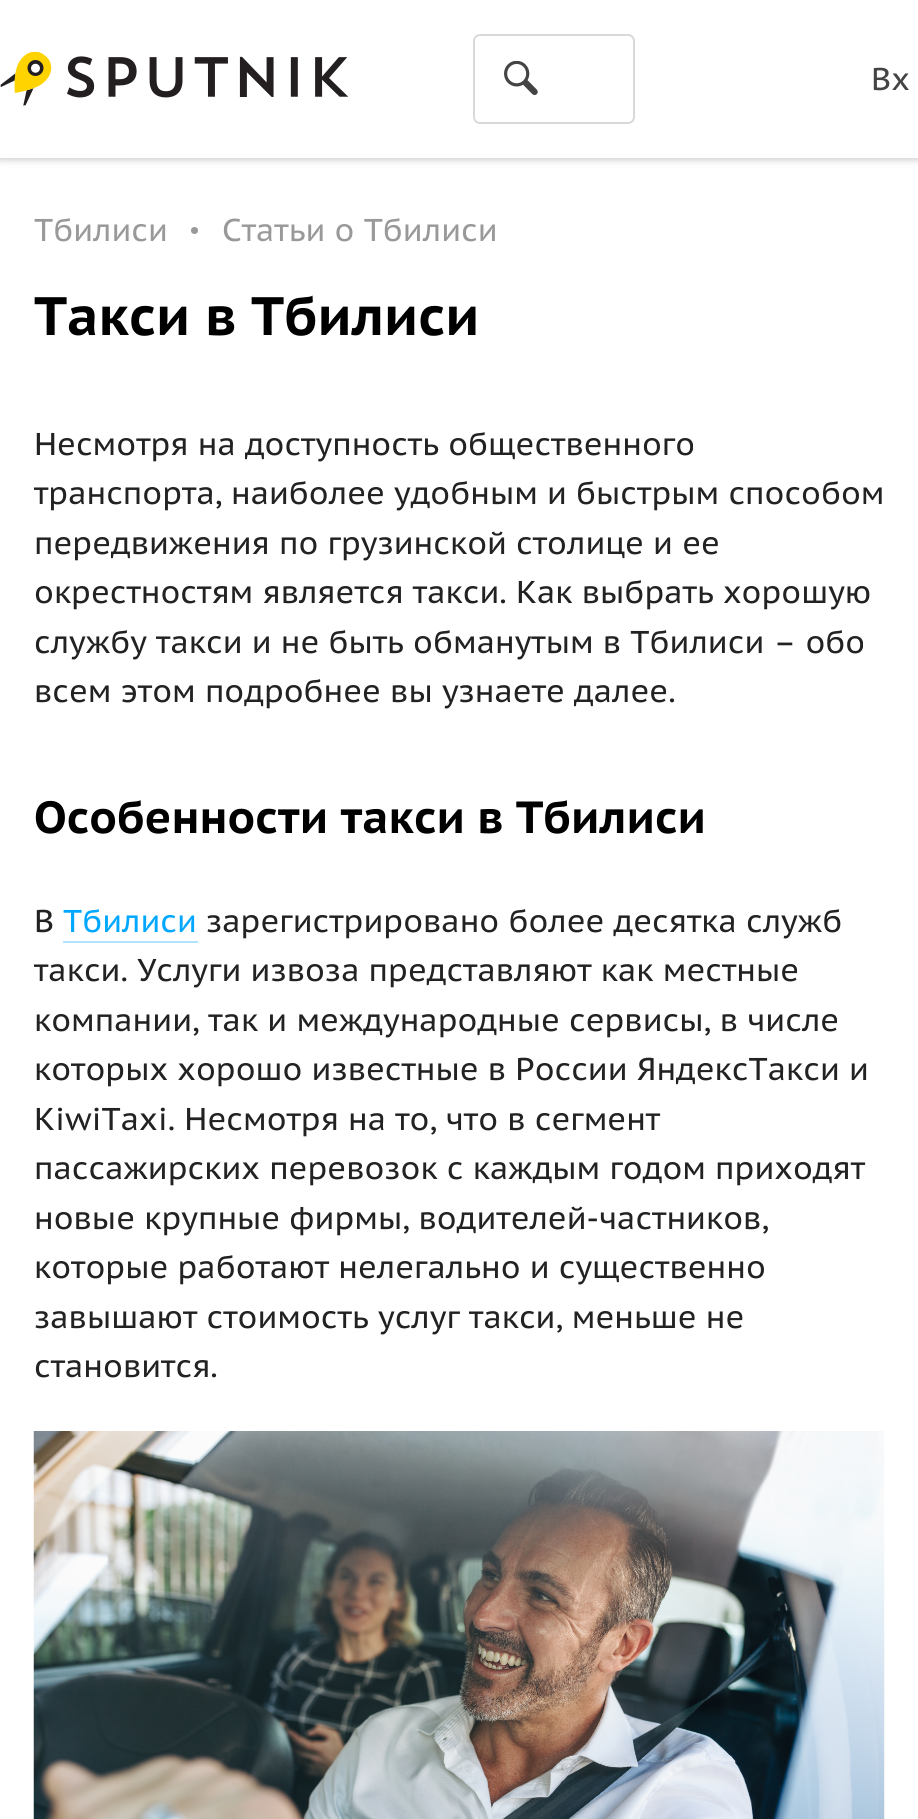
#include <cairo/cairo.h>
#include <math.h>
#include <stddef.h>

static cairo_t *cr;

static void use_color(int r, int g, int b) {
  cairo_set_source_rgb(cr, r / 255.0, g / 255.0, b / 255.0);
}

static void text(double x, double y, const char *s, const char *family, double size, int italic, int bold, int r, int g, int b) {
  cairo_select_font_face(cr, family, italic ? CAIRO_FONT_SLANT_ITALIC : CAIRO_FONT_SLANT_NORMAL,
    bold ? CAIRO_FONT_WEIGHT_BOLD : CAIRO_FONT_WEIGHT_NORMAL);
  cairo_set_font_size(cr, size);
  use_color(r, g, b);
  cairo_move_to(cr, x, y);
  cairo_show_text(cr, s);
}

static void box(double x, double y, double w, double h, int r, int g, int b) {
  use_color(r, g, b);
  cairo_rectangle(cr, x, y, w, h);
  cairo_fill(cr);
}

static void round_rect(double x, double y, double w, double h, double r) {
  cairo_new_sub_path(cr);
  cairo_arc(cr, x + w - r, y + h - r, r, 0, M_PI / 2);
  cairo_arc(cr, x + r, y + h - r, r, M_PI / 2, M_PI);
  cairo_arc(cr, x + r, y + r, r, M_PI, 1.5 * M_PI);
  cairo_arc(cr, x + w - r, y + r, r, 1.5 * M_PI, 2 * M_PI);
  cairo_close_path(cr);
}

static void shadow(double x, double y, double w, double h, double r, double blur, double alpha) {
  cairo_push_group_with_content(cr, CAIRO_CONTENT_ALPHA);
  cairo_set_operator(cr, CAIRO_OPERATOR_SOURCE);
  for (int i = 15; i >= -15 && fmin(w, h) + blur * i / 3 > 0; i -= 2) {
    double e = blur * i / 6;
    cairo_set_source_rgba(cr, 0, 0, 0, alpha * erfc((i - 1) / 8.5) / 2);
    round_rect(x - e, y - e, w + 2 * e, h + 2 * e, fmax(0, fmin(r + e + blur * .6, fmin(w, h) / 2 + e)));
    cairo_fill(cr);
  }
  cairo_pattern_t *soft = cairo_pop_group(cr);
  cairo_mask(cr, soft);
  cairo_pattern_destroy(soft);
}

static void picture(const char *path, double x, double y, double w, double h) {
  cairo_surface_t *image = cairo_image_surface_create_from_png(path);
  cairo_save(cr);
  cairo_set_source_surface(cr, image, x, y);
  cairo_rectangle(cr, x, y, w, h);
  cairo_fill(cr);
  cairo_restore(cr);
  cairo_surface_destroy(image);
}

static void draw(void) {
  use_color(255, 255, 255);
  cairo_paint(cr);
  use_color(0, 0, 0);
  shadow(0, 2, 918, 158, 0, 3.5, 0.2);
  box(0, 0, 918, 158, 255, 255, 255);
  picture("img_01.png", 0, 52, 349, 54);
  picture("img_02.png", 504, 61, 34, 35);
  round_rect(474, 35, 160, 88, 6);
  use_color(217, 217, 217);
  cairo_stroke(cr);
  use_color(255, 255, 255);
  cairo_new_path(cr);
  cairo_move_to(cr, 565, 36);
  cairo_line_to(cr, 627, 36);
  cairo_curve_to(cr, 630, 36, 632, 38, 632, 41);
  cairo_line_to(cr, 632, 117);
  cairo_curve_to(cr, 632, 120, 630, 122, 627, 122);
  cairo_line_to(cr, 565, 122);
  cairo_close_path(cr);
  cairo_fill(cr);
  use_color(153, 153, 153);
  cairo_arc(cr, 194.5, 230.5, 3.5, 0, 2 * M_PI);
  cairo_fill(cr);
  box(63, 941, 135, 2, 175, 227, 255);
  picture("img_03.png", 33, 1431, 852, 388);
  text(871, 90, "Вх", "PT Sans Caption", 31.5, 0, 0, 68, 68, 68);
  text(34, 241, "Тбилиси", "PT Sans Caption", 31.5, 0, 0, 153, 153, 153);
  text(222, 241, "Статьи о Тбилиси", "PT Sans Caption", 31.5, 0, 0, 153, 153, 153);
  text(34, 335, "Такси в Тбилиси", "PT Sans Caption", 54, 0, 1, 0, 0, 0);
  text(34, 455, "Несмотря на доступность общественного", "PT Sans Caption", 31.5, 0, 0, 34, 34, 34);
  text(34, 504, "транспорта, наиболее удобным и быстрым способом", "PT Sans Caption", 31.5, 0, 0, 34, 34, 34);
  text(34, 554, "передвижения по грузинской столице и ее", "PT Sans Caption", 31.5, 0, 0, 34, 34, 34);
  text(34, 603, "окрестностям является такси. Как выбрать хорошую", "PT Sans Caption", 31.5, 0, 0, 34, 34, 34);
  text(34, 653, "службу такси и не быть обманутым в Тбилиси – обо", "PT Sans Caption", 31.5, 0, 0, 34, 34, 34);
  text(34, 702, "всем этом подробнее вы узнаете далее.", "PT Sans Caption", 31.5, 0, 0, 34, 34, 34);
  text(34, 833, "Особенности такси в Тбилиси", "PT Sans Caption", 45, 0, 1, 0, 0, 0);
  text(34, 932, "В", "PT Sans Caption", 31.5, 0, 0, 34, 34, 34);
  text(63, 932, "Тбилиси", "PT Sans Caption", 31.5, 0, 0, 0, 167, 255);
  text(206, 932, "зарегистрировано более десятка служб", "PT Sans Caption", 31.5, 0, 0, 34, 34, 34);
  text(34, 981, "такси. Услуги извоза представляют как местные", "PT Sans Caption", 31.5, 0, 0, 34, 34, 34);
  text(34, 1031, "компании, так и международные сервисы, в числе", "PT Sans Caption", 31.5, 0, 0, 34, 34, 34);
  text(34, 1080, "которых хорошо известные в России ЯндексТакси и", "PT Sans Caption", 31.5, 0, 0, 34, 34, 34);
  text(34, 1130, "KiwiTaxi. Несмотря на то, что в сегмент", "PT Sans Caption", 31.5, 0, 0, 34, 34, 34);
  text(34, 1179, "пассажирских перевозок с каждым годом приходят", "PT Sans Caption", 31.5, 0, 0, 34, 34, 34);
  text(34, 1229, "новые крупные фирмы, водителей-частников,", "PT Sans Caption", 31.5, 0, 0, 34, 34, 34);
  text(34, 1278, "которые работают нелегально и существенно", "PT Sans Caption", 31.5, 0, 0, 34, 34, 34);
  text(34, 1328, "завышают стоимость услуг такси, меньше не", "PT Sans Caption", 31.5, 0, 0, 34, 34, 34);
  text(34, 1377, "становится.", "PT Sans Caption", 31.5, 0, 0, 34, 34, 34);
}

int main(void) {
  cairo_surface_t *surface = cairo_image_surface_create(CAIRO_FORMAT_RGB24, 918, 1819);
  cr = cairo_create(surface);
  cairo_font_options_t *options = cairo_font_options_create();
  cairo_font_options_set_hint_metrics(options, CAIRO_HINT_METRICS_OFF);
  cairo_font_options_set_hint_style(options, CAIRO_HINT_STYLE_NONE);
  cairo_set_font_options(cr, options);
  cairo_set_miter_limit(cr, 4);
  draw();
  cairo_surface_write_to_png(surface, "out.png");
  cairo_font_options_destroy(options);
  cairo_destroy(cr);
  cairo_surface_destroy(surface);
  return 0;
}
